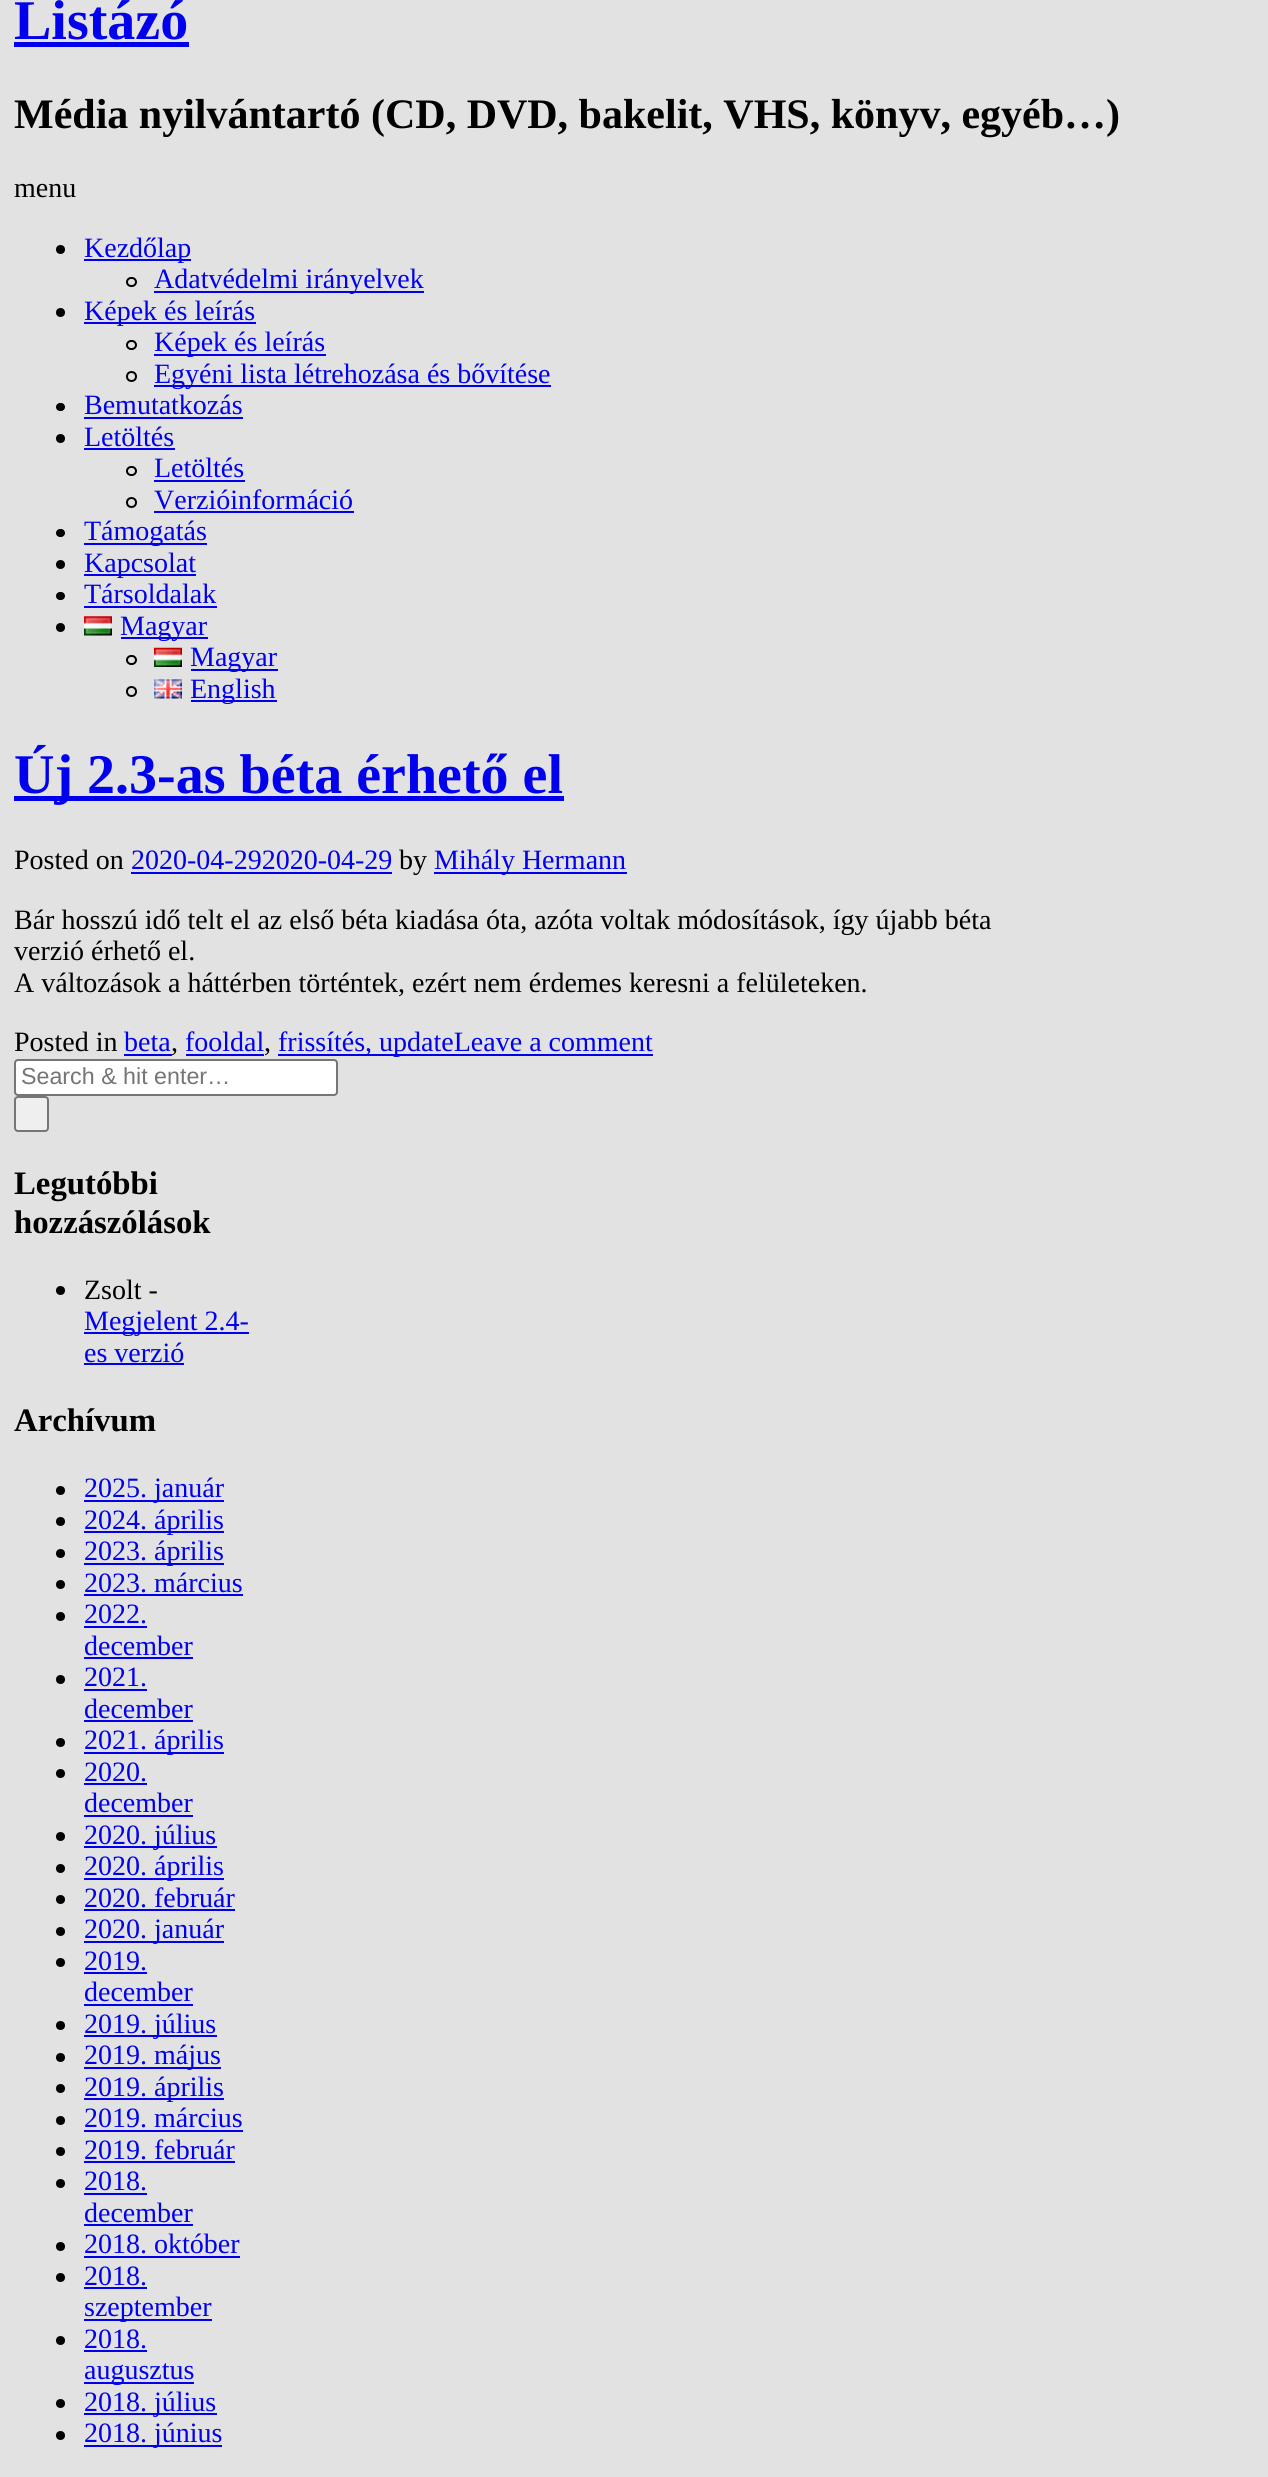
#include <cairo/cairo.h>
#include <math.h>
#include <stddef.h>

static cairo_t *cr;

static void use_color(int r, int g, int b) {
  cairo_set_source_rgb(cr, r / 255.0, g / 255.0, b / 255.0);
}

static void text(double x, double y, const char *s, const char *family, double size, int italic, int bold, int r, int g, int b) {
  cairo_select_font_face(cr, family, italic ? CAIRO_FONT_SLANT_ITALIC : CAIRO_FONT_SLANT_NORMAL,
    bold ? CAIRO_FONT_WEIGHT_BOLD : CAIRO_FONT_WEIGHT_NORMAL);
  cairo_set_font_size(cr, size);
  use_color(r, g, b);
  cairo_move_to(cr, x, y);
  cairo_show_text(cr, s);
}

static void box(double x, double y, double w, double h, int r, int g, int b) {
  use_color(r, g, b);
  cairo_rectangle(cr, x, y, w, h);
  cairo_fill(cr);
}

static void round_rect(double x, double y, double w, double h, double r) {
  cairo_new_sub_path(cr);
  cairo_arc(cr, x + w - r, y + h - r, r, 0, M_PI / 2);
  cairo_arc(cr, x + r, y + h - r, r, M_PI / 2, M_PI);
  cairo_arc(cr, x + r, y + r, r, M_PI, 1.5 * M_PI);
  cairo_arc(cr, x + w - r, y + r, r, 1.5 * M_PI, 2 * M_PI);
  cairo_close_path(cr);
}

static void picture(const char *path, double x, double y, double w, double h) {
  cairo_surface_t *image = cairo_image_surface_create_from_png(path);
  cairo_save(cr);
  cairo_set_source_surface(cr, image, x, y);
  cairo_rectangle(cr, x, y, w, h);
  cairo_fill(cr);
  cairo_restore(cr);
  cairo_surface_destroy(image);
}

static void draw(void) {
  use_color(226, 226, 226);
  cairo_paint(cr);
  box(14, 42, 175, 5, 0, 0, 238);
  use_color(0, 0, 0);
  cairo_arc(cr, 60.5, 249.5, 4.5, 0, 2 * M_PI);
  cairo_fill(cr);
  box(84, 259, 107, 2, 0, 0, 238);
  round_rect(127, 278, 9, 8, 4);
  use_color(0, 0, 0);
  cairo_stroke(cr);
  box(154, 291, 270, 2, 0, 0, 238);
  use_color(0, 0, 0);
  cairo_arc(cr, 60.5, 312.5, 4.5, 0, 2 * M_PI);
  cairo_fill(cr);
  box(84, 322, 172, 2, 0, 0, 238);
  round_rect(127, 341, 9, 8, 4);
  use_color(0, 0, 0);
  cairo_stroke(cr);
  box(154, 354, 172, 2, 0, 0, 238);
  cairo_arc(cr, 131.5, 376.5, 4.5, 0, 2 * M_PI);
  use_color(0, 0, 0);
  cairo_stroke(cr);
  box(154, 385, 397, 2, 0, 0, 238);
  use_color(0, 0, 0);
  round_rect(56, 403, 9, 8, 4);
  cairo_fill(cr);
  box(84, 417, 159, 2, 0, 0, 238);
  use_color(0, 0, 0);
  cairo_arc(cr, 60.5, 438.5, 4.5, 0, 2 * M_PI);
  cairo_fill(cr);
  box(84, 448, 91, 2, 0, 0, 238);
  round_rect(127, 467, 9, 8, 4);
  use_color(0, 0, 0);
  cairo_stroke(cr);
  box(154, 480, 91, 2, 0, 0, 238);
  cairo_arc(cr, 131.5, 502.5, 4.5, 0, 2 * M_PI);
  use_color(0, 0, 0);
  cairo_stroke(cr);
  box(154, 511, 200, 2, 0, 0, 238);
  use_color(0, 0, 0);
  round_rect(56, 529, 9, 8, 4);
  cairo_fill(cr);
  box(84, 543, 123, 2, 0, 0, 238);
  use_color(0, 0, 0);
  cairo_arc(cr, 60.5, 564.5, 4.5, 0, 2 * M_PI);
  cairo_fill(cr);
  box(84, 574, 112, 2, 0, 0, 238);
  use_color(0, 0, 0);
  round_rect(56, 592, 9, 8, 4);
  cairo_fill(cr);
  box(84, 606, 133, 2, 0, 0, 238);
  use_color(0, 0, 0);
  cairo_arc(cr, 60.5, 627.5, 4.5, 0, 2 * M_PI);
  cairo_fill(cr);
  picture("img_01.png", 84, 616, 28, 20);
  box(121, 637, 87, 2, 0, 0, 238);
  round_rect(127, 656, 9, 8, 4);
  use_color(0, 0, 0);
  cairo_stroke(cr);
  picture("img_02.png", 154, 647, 28, 20);
  box(191, 669, 87, 2, 0, 0, 238);
  cairo_arc(cr, 131.5, 691.5, 4.5, 0, 2 * M_PI);
  use_color(0, 0, 0);
  cairo_stroke(cr);
  picture("img_03.png", 154, 679, 28, 20);
  box(191, 700, 86, 2, 0, 0, 238);
  box(14, 796, 550, 5, 0, 0, 238);
  box(131, 872, 261, 2, 0, 0, 238);
  box(434, 872, 193, 2, 0, 0, 238);
  box(124, 1054, 48, 2, 0, 0, 238);
  box(186, 1054, 78, 2, 0, 0, 238);
  box(278, 1054, 375, 2, 0, 0, 238);
  use_color(255, 255, 255);
  round_rect(15, 1060, 322, 35, 3);
  cairo_fill_preserve(cr);
  use_color(118, 118, 118);
  cairo_stroke(cr);
  use_color(239, 239, 239);
  round_rect(15, 1097, 33, 34, 3);
  cairo_fill_preserve(cr);
  use_color(118, 118, 118);
  cairo_stroke(cr);
  use_color(0, 0, 0);
  cairo_arc(cr, 60.5, 1290.5, 4.5, 0, 2 * M_PI);
  cairo_fill(cr);
  box(84, 1332, 165, 2, 0, 0, 238);
  box(84, 1363, 100, 2, 0, 0, 238);
  use_color(0, 0, 0);
  cairo_arc(cr, 60.5, 1490.5, 4.5, 0, 2 * M_PI);
  cairo_fill(cr);
  box(84, 1500, 140, 2, 0, 0, 238);
  use_color(0, 0, 0);
  cairo_arc(cr, 60.5, 1521.5, 4.5, 0, 2 * M_PI);
  cairo_fill(cr);
  box(84, 1531, 140, 2, 0, 0, 238);
  use_color(0, 0, 0);
  cairo_arc(cr, 60.5, 1553.5, 4.5, 0, 2 * M_PI);
  cairo_fill(cr);
  box(84, 1563, 140, 2, 0, 0, 238);
  use_color(0, 0, 0);
  cairo_arc(cr, 60.5, 1584.5, 4.5, 0, 2 * M_PI);
  cairo_fill(cr);
  box(84, 1594, 159, 2, 0, 0, 238);
  use_color(0, 0, 0);
  cairo_arc(cr, 60.5, 1616.5, 4.5, 0, 2 * M_PI);
  cairo_fill(cr);
  box(84, 1626, 63, 2, 0, 0, 238);
  box(84, 1657, 109, 2, 0, 0, 238);
  use_color(0, 0, 0);
  cairo_arc(cr, 60.5, 1679.5, 4.5, 0, 2 * M_PI);
  cairo_fill(cr);
  box(84, 1689, 63, 2, 0, 0, 238);
  box(84, 1720, 109, 2, 0, 0, 238);
  use_color(0, 0, 0);
  cairo_arc(cr, 60.5, 1742.5, 4.5, 0, 2 * M_PI);
  cairo_fill(cr);
  box(84, 1752, 140, 2, 0, 0, 238);
  use_color(0, 0, 0);
  cairo_arc(cr, 60.5, 1773.5, 4.5, 0, 2 * M_PI);
  cairo_fill(cr);
  box(84, 1783, 63, 2, 0, 0, 238);
  box(84, 1815, 109, 2, 0, 0, 238);
  use_color(0, 0, 0);
  cairo_arc(cr, 60.5, 1836.5, 4.5, 0, 2 * M_PI);
  cairo_fill(cr);
  box(84, 1846, 133, 2, 0, 0, 238);
  use_color(0, 0, 0);
  cairo_arc(cr, 60.5, 1868.5, 4.5, 0, 2 * M_PI);
  cairo_fill(cr);
  box(84, 1878, 140, 2, 0, 0, 238);
  use_color(0, 0, 0);
  cairo_arc(cr, 60.5, 1899.5, 4.5, 0, 2 * M_PI);
  cairo_fill(cr);
  box(84, 1909, 151, 2, 0, 0, 238);
  use_color(0, 0, 0);
  cairo_arc(cr, 60.5, 1931.5, 4.5, 0, 2 * M_PI);
  cairo_fill(cr);
  box(84, 1941, 140, 2, 0, 0, 238);
  use_color(0, 0, 0);
  cairo_arc(cr, 60.5, 1962.5, 4.5, 0, 2 * M_PI);
  cairo_fill(cr);
  box(84, 1972, 63, 2, 0, 0, 238);
  box(84, 2004, 109, 2, 0, 0, 238);
  use_color(0, 0, 0);
  cairo_arc(cr, 60.5, 2025.5, 4.5, 0, 2 * M_PI);
  cairo_fill(cr);
  box(84, 2035, 133, 2, 0, 0, 238);
  use_color(0, 0, 0);
  cairo_arc(cr, 60.5, 2057.5, 4.5, 0, 2 * M_PI);
  cairo_fill(cr);
  box(84, 2067, 137, 2, 0, 0, 238);
  use_color(0, 0, 0);
  cairo_arc(cr, 60.5, 2088.5, 4.5, 0, 2 * M_PI);
  cairo_fill(cr);
  box(84, 2098, 140, 2, 0, 0, 238);
  use_color(0, 0, 0);
  cairo_arc(cr, 60.5, 2120.5, 4.5, 0, 2 * M_PI);
  cairo_fill(cr);
  box(84, 2130, 159, 2, 0, 0, 238);
  use_color(0, 0, 0);
  cairo_arc(cr, 60.5, 2151.5, 4.5, 0, 2 * M_PI);
  cairo_fill(cr);
  box(84, 2161, 151, 2, 0, 0, 238);
  use_color(0, 0, 0);
  cairo_arc(cr, 60.5, 2183.5, 4.5, 0, 2 * M_PI);
  cairo_fill(cr);
  box(84, 2193, 63, 2, 0, 0, 238);
  box(84, 2224, 109, 2, 0, 0, 238);
  use_color(0, 0, 0);
  cairo_arc(cr, 60.5, 2246.5, 4.5, 0, 2 * M_PI);
  cairo_fill(cr);
  box(84, 2256, 156, 2, 0, 0, 238);
  use_color(0, 0, 0);
  cairo_arc(cr, 60.5, 2277.5, 4.5, 0, 2 * M_PI);
  cairo_fill(cr);
  box(84, 2287, 63, 2, 0, 0, 238);
  box(84, 2319, 128, 2, 0, 0, 238);
  use_color(0, 0, 0);
  cairo_arc(cr, 60.5, 2340.5, 4.5, 0, 2 * M_PI);
  cairo_fill(cr);
  box(84, 2350, 63, 2, 0, 0, 238);
  box(84, 2382, 110, 2, 0, 0, 238);
  use_color(0, 0, 0);
  cairo_arc(cr, 60.5, 2403.5, 4.5, 0, 2 * M_PI);
  cairo_fill(cr);
  box(84, 2413, 133, 2, 0, 0, 238);
  use_color(0, 0, 0);
  cairo_arc(cr, 60.5, 2435.5, 4.5, 0, 2 * M_PI);
  cairo_fill(cr);
  box(84, 2445, 138, 2, 0, 0, 238);
  text(14, 39, "Listázó", "Liberation Serif", 56, 0, 1, 0, 0, 238);
  text(14, 128, "Média nyilvántartó (CD, DVD, bakelit, VHS, könyv, egyéb…)", "Liberation Serif", 42, 0, 1, 0, 0, 0);
  text(14, 197, "menu", "Liberation Serif", 28, 0, 0, 0, 0, 0);
  text(84, 257, "Kezdőlap", "Liberation Serif", 28, 0, 0, 0, 0, 238);
  text(154, 288, "Adatvédelmi irányelvek", "Liberation Serif", 28, 0, 0, 0, 0, 238);
  text(84, 320, "Képek és leírás", "Liberation Serif", 28, 0, 0, 0, 0, 238);
  text(154, 351, "Képek és leírás", "Liberation Serif", 28, 0, 0, 0, 0, 238);
  text(154, 383, "Egyéni lista létrehozása és bővítése", "Liberation Serif", 28, 0, 0, 0, 0, 238);
  text(84, 414, "Bemutatkozás", "Liberation Serif", 28, 0, 0, 0, 0, 238);
  text(84, 446, "Letöltés", "Liberation Serif", 28, 0, 0, 0, 0, 238);
  text(154, 477, "Letöltés", "Liberation Serif", 28, 0, 0, 0, 0, 238);
  text(154, 509, "Verzióinformáció", "Liberation Serif", 28, 0, 0, 0, 0, 238);
  text(84, 540, "Támogatás", "Liberation Serif", 28, 0, 0, 0, 0, 238);
  text(84, 572, "Kapcsolat", "Liberation Serif", 28, 0, 0, 0, 0, 238);
  text(84, 603, "Társoldalak", "Liberation Serif", 28, 0, 0, 0, 0, 238);
  text(120, 635, "Magyar", "Liberation Serif", 28, 0, 0, 0, 0, 238);
  text(190, 666, "Magyar", "Liberation Serif", 28, 0, 0, 0, 0, 238);
  text(190, 698, "English", "Liberation Serif", 28, 0, 0, 0, 0, 238);
  text(14, 793, "Új 2.3-as béta érhető el", "Liberation Serif", 56, 0, 1, 0, 0, 238);
  text(14, 869, "Posted on", "Liberation Serif", 28, 0, 0, 0, 0, 0);
  text(131, 869, "2020-04-292020-04-29", "Liberation Serif", 28, 0, 0, 0, 0, 238);
  text(399, 869, "by", "Liberation Serif", 28, 0, 0, 0, 0, 0);
  text(434, 869, "Mihály Hermann", "Liberation Serif", 28, 0, 0, 0, 0, 238);
  text(14, 929, "Bár hosszú idő telt el az első béta kiadása óta, azóta voltak módosítások, így újabb béta", "Liberation Serif", 28, 0, 0, 0, 0, 0);
  text(14, 960, "verzió érhető el.", "Liberation Serif", 28, 0, 0, 0, 0, 0);
  text(14, 992, "A változások a háttérben történtek, ezért nem érdemes keresni a felületeken.", "Liberation Serif", 28, 0, 0, 0, 0, 0);
  text(14, 1051, "Posted in", "Liberation Serif", 28, 0, 0, 0, 0, 0);
  text(124, 1051, "beta", "Liberation Serif", 28, 0, 0, 0, 0, 238);
  text(171, 1051, ",", "Liberation Serif", 28, 0, 0, 0, 0, 0);
  text(185, 1051, "fooldal", "Liberation Serif", 28, 0, 0, 0, 0, 238);
  text(264, 1051, ",", "Liberation Serif", 28, 0, 0, 0, 0, 0);
  text(278, 1051, "frissítés, updateLeave a comment", "Liberation Serif", 28, 0, 0, 0, 0, 238);
  text(21, 1084, "Search & hit enter…", "Liberation Sans", 23.25, 0, 0, 117, 117, 117);
  text(14, 1194, "Legutóbbi", "Liberation Serif", 32.75, 0, 1, 0, 0, 0);
  text(14, 1233, "hozzászólások", "Liberation Serif", 32.75, 0, 1, 0, 0, 0);
  text(84, 1299, "Zsolt -", "Liberation Serif", 28, 0, 0, 0, 0, 0);
  text(84, 1330, "Megjelent 2.4-", "Liberation Serif", 28, 0, 0, 0, 0, 238);
  text(84, 1362, "es verzió", "Liberation Serif", 28, 0, 0, 0, 0, 238);
  text(14, 1431, "Archívum", "Liberation Serif", 32.75, 0, 1, 0, 0, 0);
  text(84, 1497, "2025. január", "Liberation Serif", 28, 0, 0, 0, 0, 238);
  text(84, 1529, "2024. április", "Liberation Serif", 28, 0, 0, 0, 0, 238);
  text(84, 1560, "2023. április", "Liberation Serif", 28, 0, 0, 0, 0, 238);
  text(84, 1592, "2023. március", "Liberation Serif", 28, 0, 0, 0, 0, 238);
  text(84, 1623, "2022.", "Liberation Serif", 28, 0, 0, 0, 0, 238);
  text(84, 1655, "december", "Liberation Serif", 28, 0, 0, 0, 0, 238);
  text(84, 1686, "2021.", "Liberation Serif", 28, 0, 0, 0, 0, 238);
  text(84, 1718, "december", "Liberation Serif", 28, 0, 0, 0, 0, 238);
  text(84, 1749, "2021. április", "Liberation Serif", 28, 0, 0, 0, 0, 238);
  text(84, 1781, "2020.", "Liberation Serif", 28, 0, 0, 0, 0, 238);
  text(84, 1812, "december", "Liberation Serif", 28, 0, 0, 0, 0, 238);
  text(84, 1844, "2020. július", "Liberation Serif", 28, 0, 0, 0, 0, 238);
  text(84, 1875, "2020. április", "Liberation Serif", 28, 0, 0, 0, 0, 238);
  text(84, 1907, "2020. február", "Liberation Serif", 28, 0, 0, 0, 0, 238);
  text(84, 1938, "2020. január", "Liberation Serif", 28, 0, 0, 0, 0, 238);
  text(84, 1970, "2019.", "Liberation Serif", 28, 0, 0, 0, 0, 238);
  text(84, 2001, "december", "Liberation Serif", 28, 0, 0, 0, 0, 238);
  text(84, 2033, "2019. július", "Liberation Serif", 28, 0, 0, 0, 0, 238);
  text(84, 2064, "2019. május", "Liberation Serif", 28, 0, 0, 0, 0, 238);
  text(84, 2096, "2019. április", "Liberation Serif", 28, 0, 0, 0, 0, 238);
  text(84, 2127, "2019. március", "Liberation Serif", 28, 0, 0, 0, 0, 238);
  text(84, 2159, "2019. február", "Liberation Serif", 28, 0, 0, 0, 0, 238);
  text(84, 2190, "2018.", "Liberation Serif", 28, 0, 0, 0, 0, 238);
  text(84, 2222, "december", "Liberation Serif", 28, 0, 0, 0, 0, 238);
  text(84, 2253, "2018. október", "Liberation Serif", 28, 0, 0, 0, 0, 238);
  text(84, 2285, "2018.", "Liberation Serif", 28, 0, 0, 0, 0, 238);
  text(84, 2316, "szeptember", "Liberation Serif", 28, 0, 0, 0, 0, 238);
  text(84, 2348, "2018.", "Liberation Serif", 28, 0, 0, 0, 0, 238);
  text(84, 2379, "augusztus", "Liberation Serif", 28, 0, 0, 0, 0, 238);
  text(84, 2411, "2018. július", "Liberation Serif", 28, 0, 0, 0, 0, 238);
  text(84, 2442, "2018. június", "Liberation Serif", 28, 0, 0, 0, 0, 238);
}

int main(void) {
  cairo_surface_t *surface = cairo_image_surface_create(CAIRO_FORMAT_RGB24, 1268, 2477);
  cr = cairo_create(surface);
  cairo_font_options_t *options = cairo_font_options_create();
  cairo_font_options_set_hint_metrics(options, CAIRO_HINT_METRICS_OFF);
  cairo_font_options_set_hint_style(options, CAIRO_HINT_STYLE_NONE);
  cairo_set_font_options(cr, options);
  cairo_set_miter_limit(cr, 4);
  draw();
  cairo_surface_write_to_png(surface, "out.png");
  cairo_font_options_destroy(options);
  cairo_destroy(cr);
  cairo_surface_destroy(surface);
  return 0;
}
